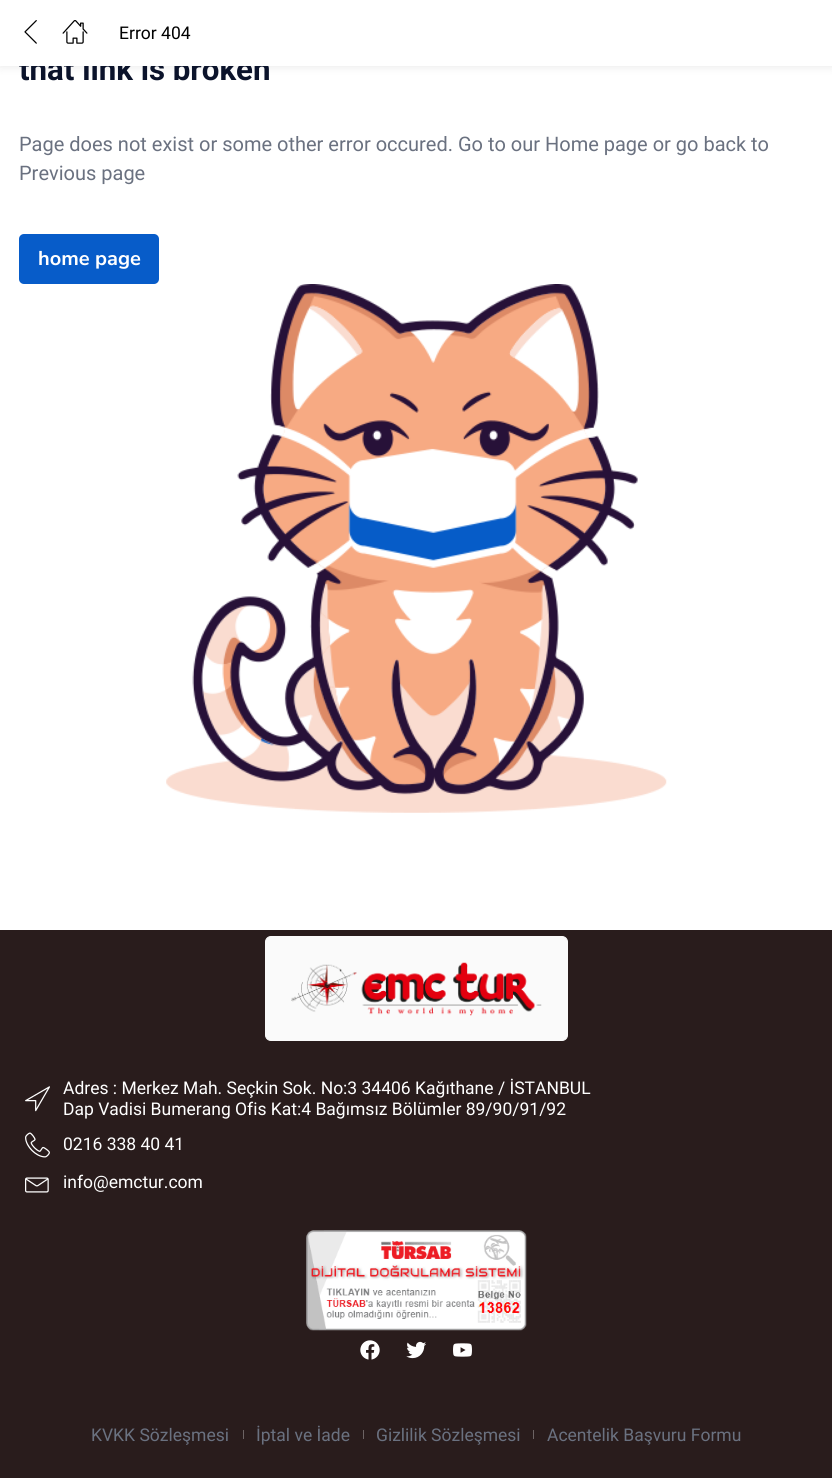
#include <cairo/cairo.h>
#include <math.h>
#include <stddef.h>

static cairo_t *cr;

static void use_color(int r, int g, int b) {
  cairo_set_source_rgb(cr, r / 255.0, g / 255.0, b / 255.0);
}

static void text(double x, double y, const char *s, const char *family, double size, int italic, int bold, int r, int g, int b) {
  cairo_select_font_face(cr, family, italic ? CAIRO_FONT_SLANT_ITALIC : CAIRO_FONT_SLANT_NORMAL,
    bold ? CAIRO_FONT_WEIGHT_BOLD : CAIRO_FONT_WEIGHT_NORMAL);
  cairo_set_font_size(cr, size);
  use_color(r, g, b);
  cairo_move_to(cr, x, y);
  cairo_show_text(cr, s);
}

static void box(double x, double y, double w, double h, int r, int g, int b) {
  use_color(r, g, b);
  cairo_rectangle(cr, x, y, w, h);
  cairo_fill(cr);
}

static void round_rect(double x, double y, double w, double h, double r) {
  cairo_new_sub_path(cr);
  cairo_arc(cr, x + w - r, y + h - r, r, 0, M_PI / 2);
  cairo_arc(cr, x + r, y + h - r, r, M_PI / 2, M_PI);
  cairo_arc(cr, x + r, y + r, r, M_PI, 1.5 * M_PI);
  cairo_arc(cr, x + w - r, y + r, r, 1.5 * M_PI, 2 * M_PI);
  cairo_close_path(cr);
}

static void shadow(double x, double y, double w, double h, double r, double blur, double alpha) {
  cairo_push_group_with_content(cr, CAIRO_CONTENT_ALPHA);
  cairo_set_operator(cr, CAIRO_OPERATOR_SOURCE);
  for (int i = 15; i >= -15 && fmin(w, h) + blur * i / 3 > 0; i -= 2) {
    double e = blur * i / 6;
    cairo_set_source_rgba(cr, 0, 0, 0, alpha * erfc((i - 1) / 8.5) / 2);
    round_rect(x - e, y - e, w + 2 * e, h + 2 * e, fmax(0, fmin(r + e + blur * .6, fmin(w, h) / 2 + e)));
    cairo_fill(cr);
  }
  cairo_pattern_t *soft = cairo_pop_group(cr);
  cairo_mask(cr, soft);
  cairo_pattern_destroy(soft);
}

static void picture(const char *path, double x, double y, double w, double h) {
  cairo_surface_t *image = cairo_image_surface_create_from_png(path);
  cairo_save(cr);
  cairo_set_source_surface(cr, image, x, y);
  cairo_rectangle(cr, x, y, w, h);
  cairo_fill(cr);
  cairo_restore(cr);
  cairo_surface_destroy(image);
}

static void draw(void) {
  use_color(255, 255, 255);
  cairo_paint(cr);
  use_color(0, 0, 0);
  shadow(0, 0, 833, 66, 0, 5, 0.1);
  use_color(7, 92, 201);
  round_rect(19, 234, 140, 50, 5);
  cairo_fill(cr);
  picture("img_03.png", 166, 284, 501, 529);
  box(0, 930, 832, 548, 41, 28, 28);
  use_color(250, 250, 250);
  round_rect(265.5, 936.5, 302, 104, 5.5);
  cairo_fill_preserve(cr);
  cairo_set_line_width(cr, 1);
  cairo_stroke(cr);
  picture("img_04.png", 291, 962, 251, 54);
  picture("img_05.png", 25, 1086, 25, 26);
  picture("img_06.png", 25, 1132, 25, 26);
  picture("img_07.png", 25, 1177, 24, 16);
  picture("img_08.png", 306, 1230, 221, 101);
  picture("img_09.png", 360, 1340, 20, 20);
  picture("img_10.png", 406, 1341, 20, 18);
  picture("img_11.png", 453, 1343, 19, 14);
  box(243, 1430, 1, 9, 108, 99, 99);
  box(363, 1430, 1, 9, 108, 99, 99);
  box(533, 1430, 1, 9, 108, 99, 99);
  text(19, 80, "that link is broken", "Roboto", 31.25, 0, 1, 11, 19, 43);
  box(0, 0, 832, 66, 255, 255, 255);
  text(119, 39, "Error 404", "Roboto", 17.5, 0, 0, 0, 0, 0);
  picture("img_02.png", 62, 20, 26, 24);
  picture("img_01.png", 24, 20, 13, 24);
  text(19, 151, "Page does not exist or some other error occured. Go to our Home page or go back to", "Roboto", 20, 0, 0, 106, 113, 128);
  text(19, 180, "Previous page", "Roboto", 20, 0, 0, 106, 113, 128);
  text(38, 265, "home page", "Nunito Sans", 20, 0, 1, 255, 255, 255);
  text(63, 1094, "Adres : Merkez Mah. Seçkin Sok. No:3 34406 Kağıthane / İSTANBUL", "Roboto", 17.5, 0, 0, 255, 255, 255);
  text(63, 1115, "Dap Vadisi Bumerang Ofis Kat:4 Bağımsız Bölümler 89/90/91/92", "Roboto", 17.5, 0, 0, 255, 255, 255);
  text(63, 1150, "0216 338 40 41", "Roboto", 17.5, 0, 0, 255, 255, 255);
  text(63, 1188, "info@emctur.com", "Roboto", 17.5, 0, 0, 255, 255, 255);
  text(91, 1441, "KVKK Sözleşmesi", "Roboto", 17.5, 0, 0, 106, 113, 128);
  text(256, 1441, "İptal ve İade", "Roboto", 17.5, 0, 0, 106, 113, 128);
  text(376, 1441, "Gizlilik Sözleşmesi", "Roboto", 17.5, 0, 0, 106, 113, 128);
  text(547, 1441, "Acentelik Başvuru Formu", "Roboto", 17.5, 0, 0, 106, 113, 128);
}

int main(void) {
  cairo_surface_t *surface = cairo_image_surface_create(CAIRO_FORMAT_RGB24, 832, 1478);
  cr = cairo_create(surface);
  cairo_font_options_t *options = cairo_font_options_create();
  cairo_font_options_set_hint_metrics(options, CAIRO_HINT_METRICS_OFF);
  cairo_font_options_set_hint_style(options, CAIRO_HINT_STYLE_NONE);
  cairo_set_font_options(cr, options);
  cairo_set_miter_limit(cr, 4);
  draw();
  cairo_surface_write_to_png(surface, "out.png");
  cairo_font_options_destroy(options);
  cairo_destroy(cr);
  cairo_surface_destroy(surface);
  return 0;
}
